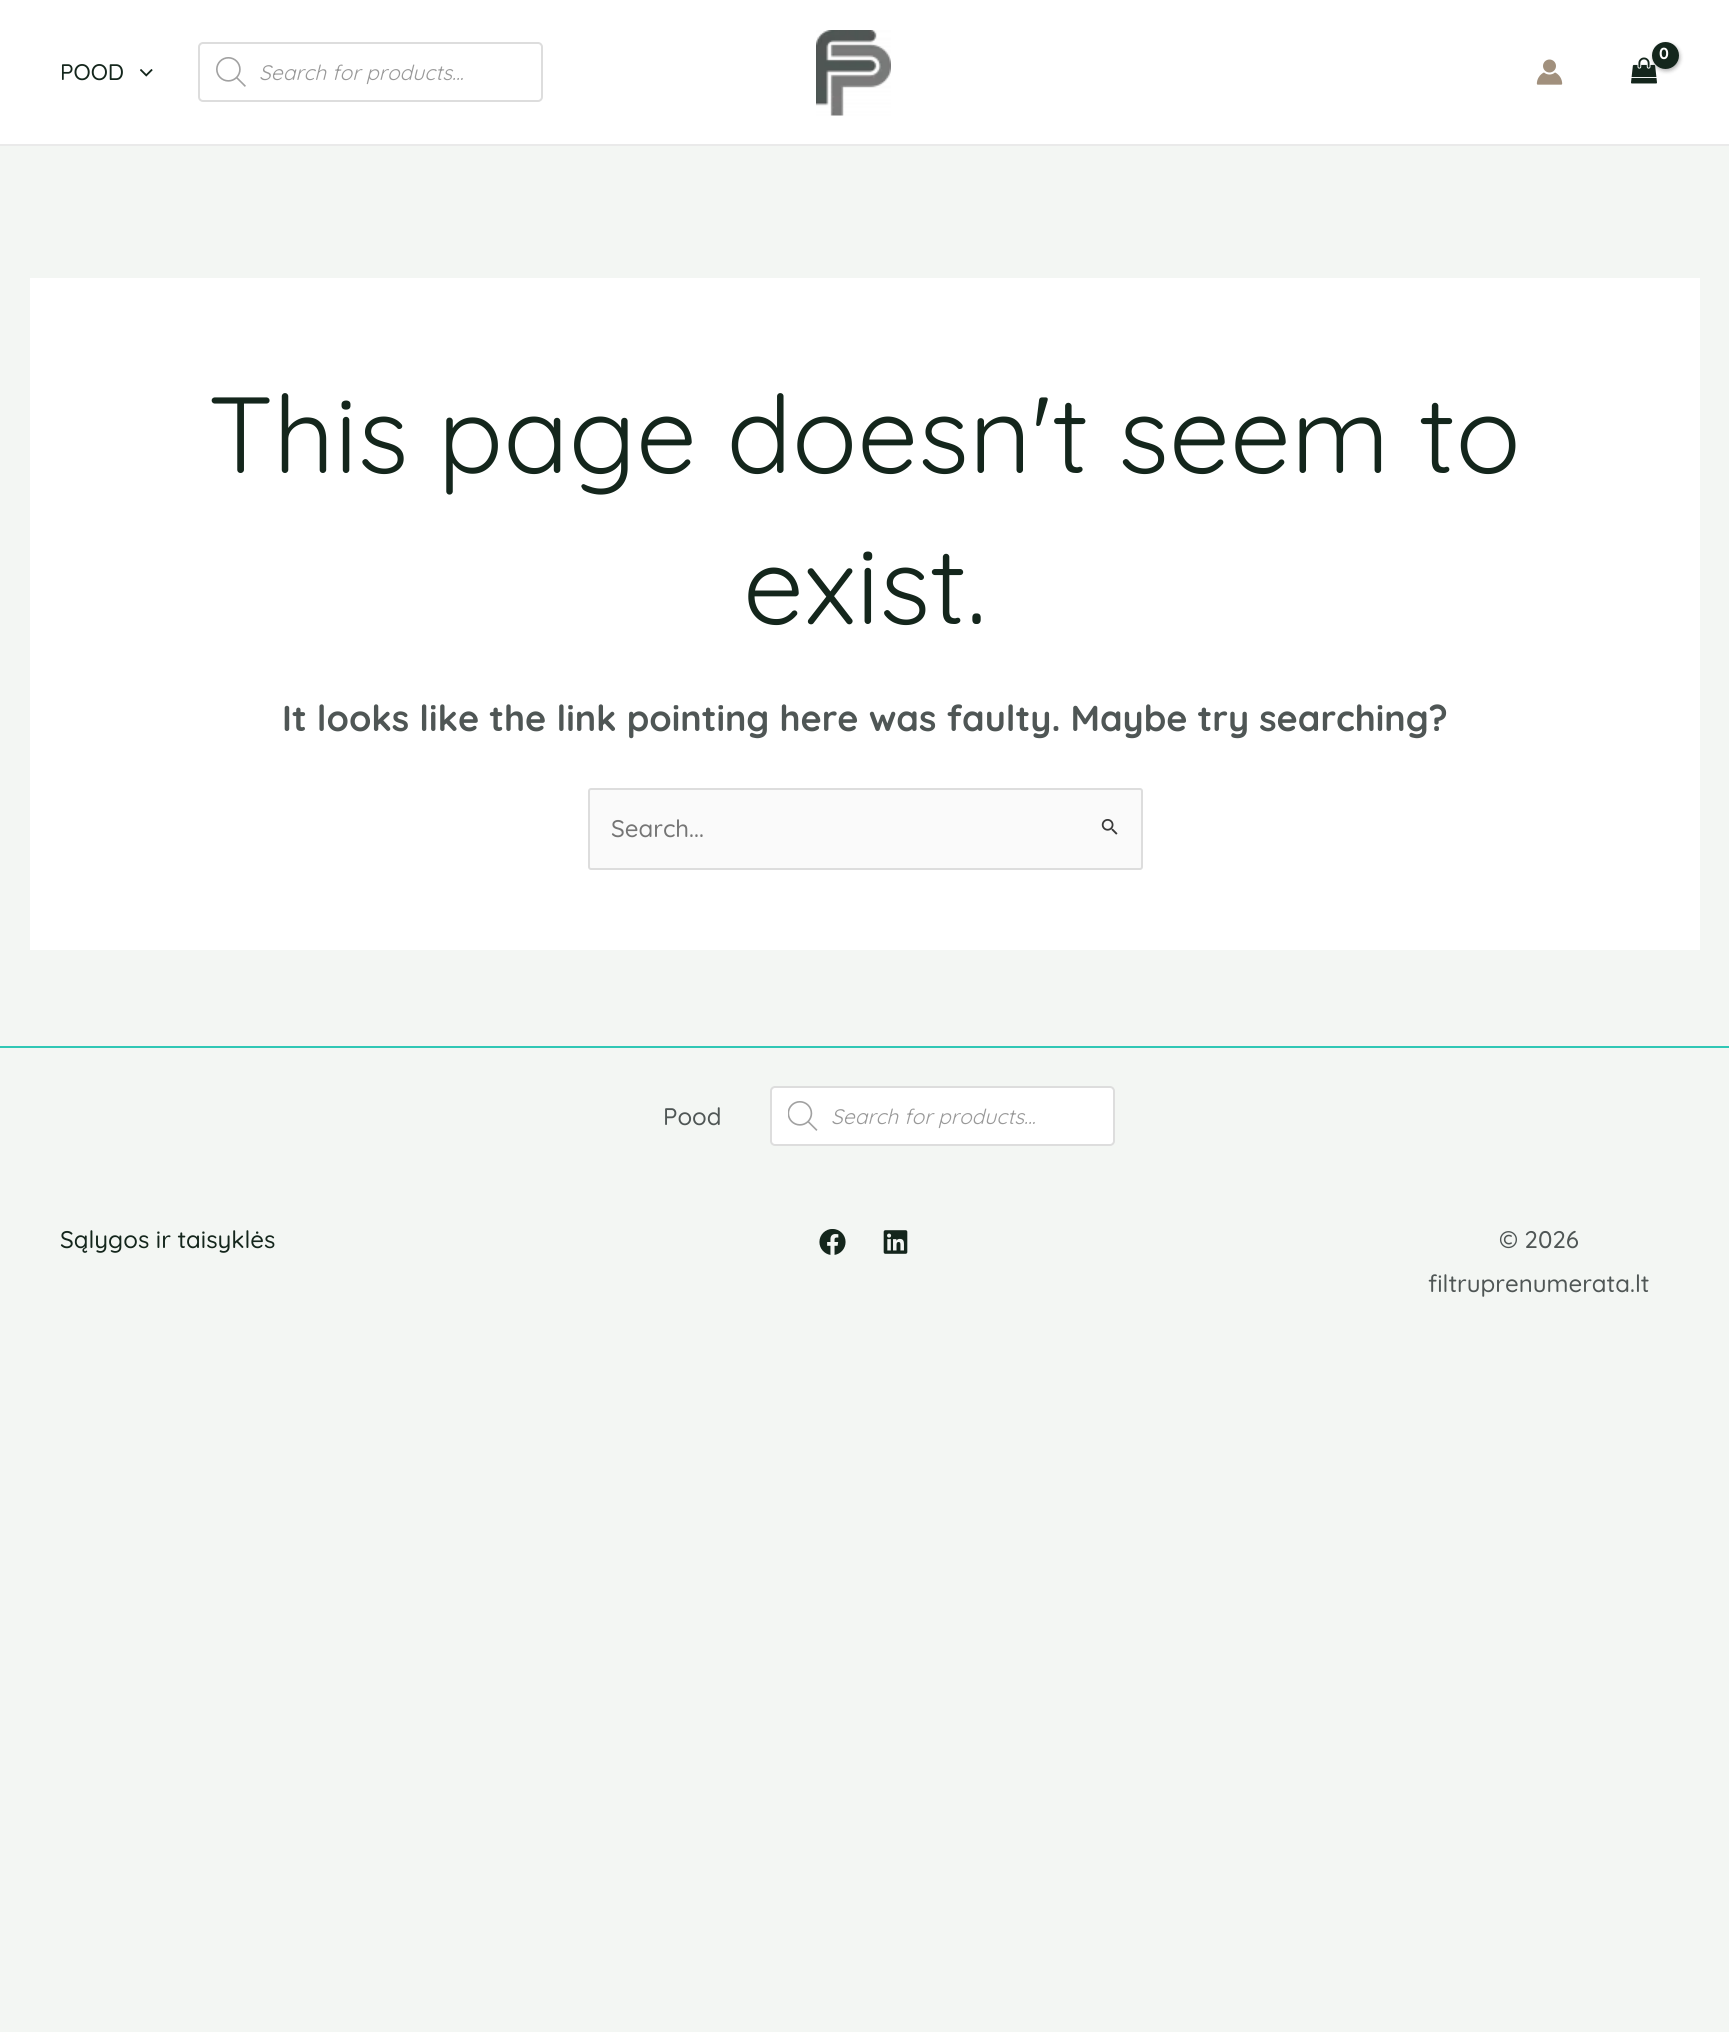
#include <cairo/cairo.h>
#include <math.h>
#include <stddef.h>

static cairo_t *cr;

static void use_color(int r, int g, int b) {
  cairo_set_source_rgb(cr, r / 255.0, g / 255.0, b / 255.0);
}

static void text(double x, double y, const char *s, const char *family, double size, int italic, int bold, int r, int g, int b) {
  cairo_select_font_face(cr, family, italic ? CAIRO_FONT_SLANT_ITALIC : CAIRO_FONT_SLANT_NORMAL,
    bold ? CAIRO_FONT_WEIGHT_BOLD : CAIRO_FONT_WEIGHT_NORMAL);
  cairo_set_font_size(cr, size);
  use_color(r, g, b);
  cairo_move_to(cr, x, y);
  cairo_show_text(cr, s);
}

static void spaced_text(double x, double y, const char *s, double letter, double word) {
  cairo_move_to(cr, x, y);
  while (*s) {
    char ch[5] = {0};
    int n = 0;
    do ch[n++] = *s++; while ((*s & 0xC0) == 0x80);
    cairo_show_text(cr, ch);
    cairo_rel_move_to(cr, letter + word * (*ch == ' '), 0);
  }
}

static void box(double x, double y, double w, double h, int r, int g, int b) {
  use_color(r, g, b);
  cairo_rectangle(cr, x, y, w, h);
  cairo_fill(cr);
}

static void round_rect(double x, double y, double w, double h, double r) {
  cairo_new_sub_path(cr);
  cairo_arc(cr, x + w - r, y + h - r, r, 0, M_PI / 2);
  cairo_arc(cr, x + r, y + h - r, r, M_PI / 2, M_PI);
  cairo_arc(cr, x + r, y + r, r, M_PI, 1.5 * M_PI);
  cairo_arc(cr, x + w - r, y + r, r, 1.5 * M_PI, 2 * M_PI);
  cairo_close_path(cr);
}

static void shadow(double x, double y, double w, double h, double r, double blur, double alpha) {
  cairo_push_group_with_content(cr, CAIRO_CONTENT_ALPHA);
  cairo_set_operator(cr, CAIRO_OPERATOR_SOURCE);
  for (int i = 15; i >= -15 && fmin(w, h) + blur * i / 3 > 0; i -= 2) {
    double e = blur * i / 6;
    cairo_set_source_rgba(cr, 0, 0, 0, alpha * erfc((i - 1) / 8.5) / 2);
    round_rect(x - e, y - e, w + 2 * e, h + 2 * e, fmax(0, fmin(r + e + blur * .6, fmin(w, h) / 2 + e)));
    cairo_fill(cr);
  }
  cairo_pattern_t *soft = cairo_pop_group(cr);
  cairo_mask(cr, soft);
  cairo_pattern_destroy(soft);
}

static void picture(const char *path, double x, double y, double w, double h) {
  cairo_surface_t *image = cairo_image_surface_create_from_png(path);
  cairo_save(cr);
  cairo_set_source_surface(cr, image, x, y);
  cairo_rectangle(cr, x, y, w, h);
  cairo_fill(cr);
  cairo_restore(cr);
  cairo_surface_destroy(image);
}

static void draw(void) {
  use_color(243, 246, 243);
  cairo_paint(cr);
  box(0, 0, 1729, 144, 255, 255, 255);
  box(0, 144, 1729, 2, 234, 234, 234);
  picture("img_01.png", 816, 30, 75, 86);
  picture("img_02.png", 1631, 57, 26, 27);
  use_color(0, 0, 0);
  shadow(1653, 44, 27, 27, 13.5, 2, 0.3);
  use_color(20, 38, 28);
  cairo_arc(cr, 1665.5, 55.5, 13.5, 0, 2 * M_PI);
  cairo_fill(cr);
  picture("img_03.png", 1536, 59, 27, 26);
  picture("img_04.png", 140, 69, 13, 8);
  round_rect(199, 43, 343, 58, 4);
  use_color(221, 221, 221);
  cairo_stroke(cr);
  picture("img_05.png", 216, 57, 30, 30);
  box(30, 278, 1670, 672, 255, 255, 255);
  use_color(250, 250, 250);
  round_rect(589, 789, 553, 80, 2);
  cairo_fill_preserve(cr);
  use_color(221, 221, 221);
  cairo_stroke(cr);
  picture("img_06.png", 1101, 819, 17, 16);
  box(0, 1046, 1729, 2, 48, 199, 181);
  use_color(255, 255, 255);
  round_rect(771, 1087, 343, 58, 4);
  cairo_fill_preserve(cr);
  use_color(221, 221, 221);
  cairo_stroke(cr);
  picture("img_07.png", 788, 1101, 30, 30);
  picture("img_08.png", 819, 1229, 27, 26);
  picture("img_09.png", 883, 1230, 25, 24);
  cairo_select_font_face(cr, "Quicksand", CAIRO_FONT_SLANT_NORMAL, CAIRO_FONT_WEIGHT_BOLD);
  cairo_set_font_size(cr, 16);
  use_color(255, 255, 255);
  spaced_text(1659, 59, "0", -1, 0);
  text(60, 80, "POOD", "Quicksand Medium", 22.5, 0, 0, 20, 38, 28);
  text(259, 80, "Search for products...", "Quicksand", 21, 1, 0, 153, 153, 153);
  text(208, 473, "This page doesn't seem to", "Quicksand", 108, 0, 0, 20, 38, 28);
  text(743, 624, "exist.", "Quicksand", 108, 0, 0, 20, 38, 28);
  text(282, 731, "It looks like the link pointing here was faulty. Maybe try searching?", "Quicksand", 36, 0, 1, 79, 86, 85);
  text(611, 837, "Search...", "Quicksand Medium", 24, 0, 0, 117, 117, 117);
  text(663, 1125, "Pood", "Quicksand Medium", 24, 0, 0, 79, 86, 85);
  text(831, 1124, "Search for products...", "Quicksand", 21, 1, 0, 153, 153, 153);
  text(60, 1248, "Sąlygos ir taisyklės", "Quicksand Medium", 24, 0, 0, 20, 38, 28);
  text(1499, 1248, "© 2026", "Quicksand Medium", 24, 0, 0, 79, 86, 85);
  text(1428, 1292, "filtruprenumerata.lt", "Quicksand Medium", 24, 0, 0, 79, 86, 85);
}

int main(void) {
  cairo_surface_t *surface = cairo_image_surface_create(CAIRO_FORMAT_RGB24, 1729, 2032);
  cr = cairo_create(surface);
  cairo_font_options_t *options = cairo_font_options_create();
  cairo_font_options_set_hint_metrics(options, CAIRO_HINT_METRICS_OFF);
  cairo_font_options_set_hint_style(options, CAIRO_HINT_STYLE_NONE);
  cairo_set_font_options(cr, options);
  cairo_set_miter_limit(cr, 4);
  draw();
  cairo_surface_write_to_png(surface, "out.png");
  cairo_font_options_destroy(options);
  cairo_destroy(cr);
  cairo_surface_destroy(surface);
  return 0;
}
